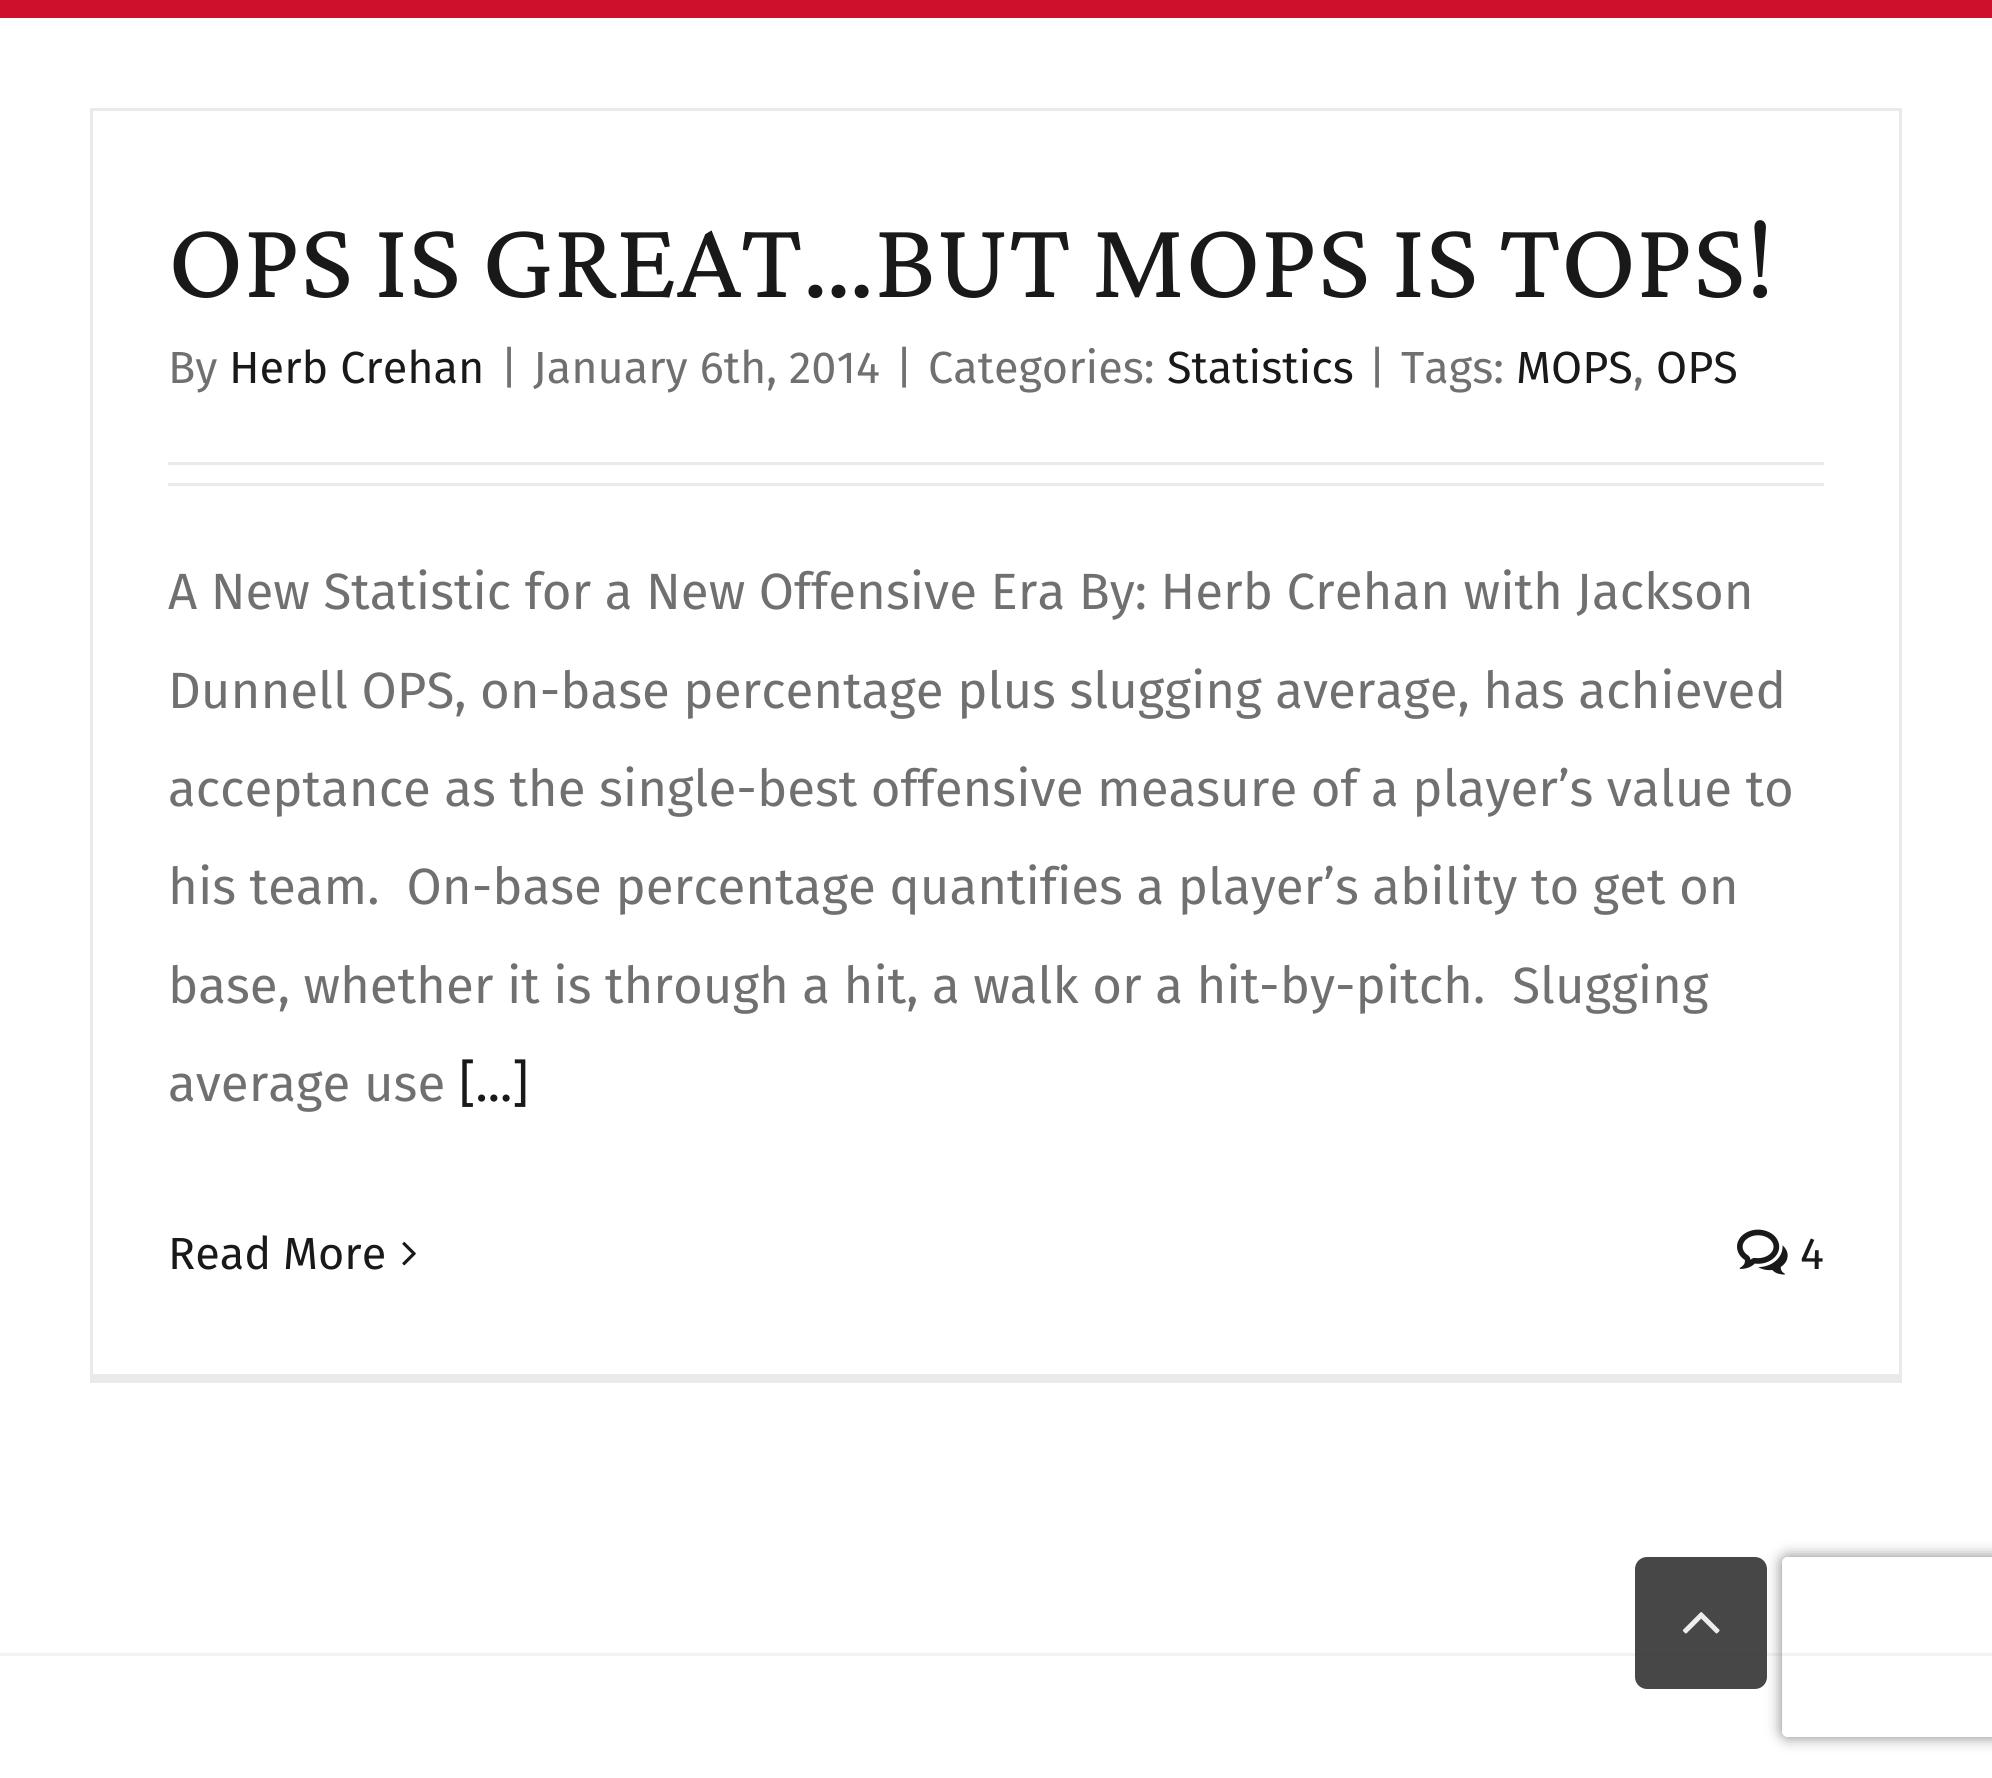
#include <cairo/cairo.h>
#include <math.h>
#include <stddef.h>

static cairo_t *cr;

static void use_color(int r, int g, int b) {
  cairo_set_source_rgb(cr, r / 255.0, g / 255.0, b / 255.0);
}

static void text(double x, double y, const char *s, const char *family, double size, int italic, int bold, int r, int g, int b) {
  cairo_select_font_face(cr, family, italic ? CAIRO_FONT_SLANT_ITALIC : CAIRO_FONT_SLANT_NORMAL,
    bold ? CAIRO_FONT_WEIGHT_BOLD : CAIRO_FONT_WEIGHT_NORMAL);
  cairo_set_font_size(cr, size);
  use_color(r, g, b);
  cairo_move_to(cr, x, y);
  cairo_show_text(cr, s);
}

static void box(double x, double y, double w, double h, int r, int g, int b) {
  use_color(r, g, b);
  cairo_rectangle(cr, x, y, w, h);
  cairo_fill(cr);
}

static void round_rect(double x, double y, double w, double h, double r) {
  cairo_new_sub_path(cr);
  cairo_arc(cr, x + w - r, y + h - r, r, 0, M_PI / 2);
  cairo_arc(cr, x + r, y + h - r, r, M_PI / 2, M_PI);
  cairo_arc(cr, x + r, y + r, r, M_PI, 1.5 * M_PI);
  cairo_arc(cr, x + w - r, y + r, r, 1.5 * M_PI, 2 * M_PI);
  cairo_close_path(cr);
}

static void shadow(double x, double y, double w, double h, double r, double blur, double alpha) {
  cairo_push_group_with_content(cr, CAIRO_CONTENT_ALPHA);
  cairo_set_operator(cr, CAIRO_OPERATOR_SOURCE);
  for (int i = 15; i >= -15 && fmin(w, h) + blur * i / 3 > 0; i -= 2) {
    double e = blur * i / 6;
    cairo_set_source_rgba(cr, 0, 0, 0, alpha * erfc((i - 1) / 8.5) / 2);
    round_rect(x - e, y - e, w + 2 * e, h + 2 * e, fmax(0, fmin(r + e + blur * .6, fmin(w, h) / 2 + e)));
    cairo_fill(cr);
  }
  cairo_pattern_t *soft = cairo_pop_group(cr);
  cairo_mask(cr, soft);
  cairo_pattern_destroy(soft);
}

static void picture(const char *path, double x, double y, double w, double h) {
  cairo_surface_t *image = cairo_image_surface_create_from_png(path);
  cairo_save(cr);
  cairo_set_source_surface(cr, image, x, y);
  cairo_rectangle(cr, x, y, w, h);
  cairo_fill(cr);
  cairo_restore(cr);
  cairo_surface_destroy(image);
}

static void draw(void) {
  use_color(255, 255, 255);
  cairo_paint(cr);
  box(0, 0, 1992, 18, 207, 16, 45);
  box(90, 108, 1812, 3, 234, 234, 234);
  box(1899, 108, 3, 1266, 234, 234, 234);
  box(93, 1374, 1809, 9, 234, 234, 234);
  box(90, 108, 3, 1275, 234, 234, 234);
  box(168, 462, 1656, 3, 234, 234, 234);
  box(168, 483, 1656, 3, 234, 234, 234);
  picture("img_01.png", 402, 1242, 14, 24);
  picture("img_02.png", 1737, 1229, 51, 46);
  box(0, 1653, 1992, 3, 242, 242, 242);
  cairo_save(cr);
  cairo_set_fill_rule(cr, CAIRO_FILL_RULE_EVEN_ODD);
  cairo_new_path(cr);
  cairo_move_to(cr, 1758, 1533);
  cairo_line_to(cr, 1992, 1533);
  cairo_line_to(cr, 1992, 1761);
  cairo_line_to(cr, 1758, 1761);
  cairo_close_path(cr);
  cairo_move_to(cr, 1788, 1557);
  cairo_line_to(cr, 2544, 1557);
  cairo_curve_to(cr, 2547.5, 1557, 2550, 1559.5, 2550, 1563);
  cairo_line_to(cr, 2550, 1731);
  cairo_curve_to(cr, 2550, 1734.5, 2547.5, 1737, 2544, 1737);
  cairo_line_to(cr, 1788, 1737);
  cairo_curve_to(cr, 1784.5, 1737, 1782, 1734.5, 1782, 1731);
  cairo_line_to(cr, 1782, 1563);
  cairo_curve_to(cr, 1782, 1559.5, 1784.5, 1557, 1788, 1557);
  cairo_close_path(cr);
  cairo_clip(cr);
  use_color(128, 128, 128);
  shadow(1782, 1557, 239, 180, 6, 7.5, 1);
  cairo_restore(cr);
  cairo_set_source_rgba(cr, 0.2, 0.2, 0.2, 0.9);
  round_rect(1635, 1557, 132, 132, 12);
  cairo_fill(cr);
  picture("img_03.png", 1682, 1612, 38, 22);
  text(168, 297, "OPS IS GREAT…BUT MOPS IS TOPS!", "Crimson Pro", 112.75, 0, 0, 25, 25, 25);
  text(168, 383, "By", "Fira Sans", 45, 0, 0, 112, 112, 112);
  text(229, 383, "Herb Crehan", "Fira Sans", 45, 0, 0, 25, 25, 25);
  text(500, 383, "|", "Fira Sans", 45, 0, 0, 112, 112, 112);
  text(533, 383, "January 6th, 2014", "Fira Sans", 45, 0, 0, 112, 112, 112);
  text(895, 383, "|", "Fira Sans", 45, 0, 0, 112, 112, 112);
  text(928, 383, "Categories:", "Fira Sans", 45, 0, 0, 112, 112, 112);
  text(1167, 383, "Statistics", "Fira Sans", 45, 0, 0, 25, 25, 25);
  text(1368, 383, "|", "Fira Sans", 45, 0, 0, 112, 112, 112);
  text(1401, 383, "Tags:", "Fira Sans", 45, 0, 0, 112, 112, 112);
  text(1516, 383, "MOPS", "Fira Sans", 45, 0, 0, 25, 25, 25);
  text(1633, 383, ",", "Fira Sans", 45, 0, 0, 112, 112, 112);
  text(1656, 383, "OPS", "Fira Sans", 45, 0, 0, 25, 25, 25);
  text(168, 609, "A New Statistic for a New Offensive Era By: Herb Crehan with Jackson", "Fira Sans", 51, 0, 0, 112, 112, 112);
  text(168, 708, "Dunnell OPS, on-base percentage plus slugging average, has achieved", "Fira Sans", 51, 0, 0, 112, 112, 112);
  text(168, 806, "acceptance as the single-best offensive measure of a player’s value to", "Fira Sans", 51, 0, 0, 112, 112, 112);
  text(168, 904, "his team.  On-base percentage quantifies a player’s ability to get on", "Fira Sans", 51, 0, 0, 112, 112, 112);
  text(168, 1003, "base, whether it is through a hit, a walk or a hit-by-pitch.  Slugging", "Fira Sans", 51, 0, 0, 112, 112, 112);
  text(168, 1101, "average use", "Fira Sans", 51, 0, 0, 112, 112, 112);
  text(459, 1101, "[...]", "Fira Sans", 51, 0, 0, 25, 25, 25);
  text(168, 1269, "Read More", "Fira Sans", 45, 0, 0, 25, 25, 25);
  text(1800, 1269, "4", "Fira Sans", 45, 0, 0, 25, 25, 25);
}

int main(void) {
  cairo_surface_t *surface = cairo_image_surface_create(CAIRO_FORMAT_RGB24, 1992, 1778);
  cr = cairo_create(surface);
  cairo_font_options_t *options = cairo_font_options_create();
  cairo_font_options_set_hint_metrics(options, CAIRO_HINT_METRICS_OFF);
  cairo_font_options_set_hint_style(options, CAIRO_HINT_STYLE_NONE);
  cairo_set_font_options(cr, options);
  cairo_set_miter_limit(cr, 4);
  draw();
  cairo_surface_write_to_png(surface, "out.png");
  cairo_font_options_destroy(options);
  cairo_destroy(cr);
  cairo_surface_destroy(surface);
  return 0;
}
